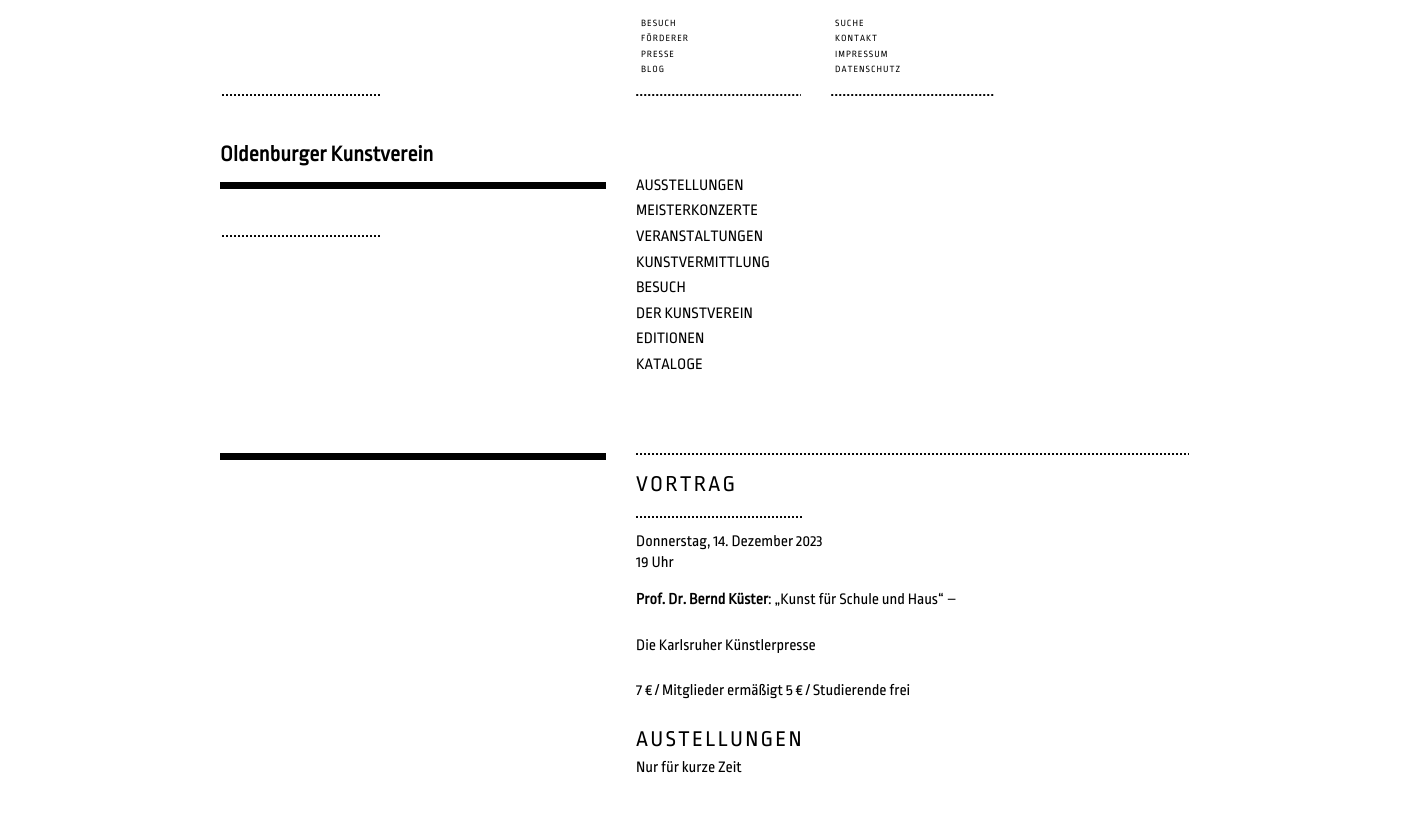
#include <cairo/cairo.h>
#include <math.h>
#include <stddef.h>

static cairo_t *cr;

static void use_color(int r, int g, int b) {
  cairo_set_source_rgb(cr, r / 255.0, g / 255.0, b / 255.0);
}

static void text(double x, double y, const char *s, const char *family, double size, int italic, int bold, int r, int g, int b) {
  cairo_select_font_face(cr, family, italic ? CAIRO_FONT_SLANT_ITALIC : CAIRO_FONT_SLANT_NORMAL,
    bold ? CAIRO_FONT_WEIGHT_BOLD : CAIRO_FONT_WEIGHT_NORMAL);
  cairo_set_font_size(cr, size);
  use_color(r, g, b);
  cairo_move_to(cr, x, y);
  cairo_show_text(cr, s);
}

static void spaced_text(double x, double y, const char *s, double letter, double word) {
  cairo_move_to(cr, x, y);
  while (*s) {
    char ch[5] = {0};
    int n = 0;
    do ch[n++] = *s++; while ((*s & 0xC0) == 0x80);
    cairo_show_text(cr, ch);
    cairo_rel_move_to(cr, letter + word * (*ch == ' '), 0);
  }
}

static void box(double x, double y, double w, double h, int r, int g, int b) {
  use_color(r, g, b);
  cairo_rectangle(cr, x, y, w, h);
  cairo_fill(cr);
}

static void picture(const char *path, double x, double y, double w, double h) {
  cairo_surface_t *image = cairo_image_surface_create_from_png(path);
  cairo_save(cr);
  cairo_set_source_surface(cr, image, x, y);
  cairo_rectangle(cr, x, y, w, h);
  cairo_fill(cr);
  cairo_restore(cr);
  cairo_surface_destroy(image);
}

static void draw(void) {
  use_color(255, 255, 255);
  cairo_paint(cr);
  picture("img_01.png", 636, 94, 165, 2);
  picture("img_02.png", 831, 94, 163, 2);
  picture("img_03.png", 222, 94, 158, 2);
  box(220, 182, 386, 7, 0, 0, 0);
  picture("img_03.png", 222, 235, 158, 2);
  box(220, 453, 386, 7, 0, 0, 0);
  picture("img_04.png", 636, 453, 553, 2);
  picture("img_05.png", 636, 516, 166, 2);
  cairo_select_font_face(cr, "Ropa Sans", CAIRO_FONT_SLANT_NORMAL, CAIRO_FONT_WEIGHT_NORMAL);
  cairo_set_font_size(cr, 9.5);
  spaced_text(641, 26, "BESUCH", 1, 0);
  spaced_text(641, 41, "FÖRDERER", 1, 0);
  spaced_text(641, 57, "PRESSE", 1, 0);
  spaced_text(641, 72, "BLOG", 1, 0);
  spaced_text(835, 26, "SUCHE", 1, 0);
  spaced_text(835, 41, "KONTAKT", 1, 0);
  spaced_text(835, 57, "IMPRESSUM", 1, 0);
  spaced_text(835, 72, "DATENSCHUTZ", 1, 0);
  text(220, 161, "Oldenburger Kunstverein", "Ropa Sans", 22.5, 0, 1, 0, 0, 0);
  text(636, 190, "AUSSTELLUNGEN", "Ropa Sans", 16, 0, 0, 0, 0, 0);
  text(636, 215, "MEISTERKONZERTE", "Ropa Sans", 16, 0, 0, 0, 0, 0);
  text(636, 241, "VERANSTALTUNGEN", "Ropa Sans", 16, 0, 0, 0, 0, 0);
  text(636, 267, "KUNSTVERMITTLUNG", "Ropa Sans", 16, 0, 0, 0, 0, 0);
  text(636, 292, "BESUCH", "Ropa Sans", 16, 0, 0, 0, 0, 0);
  text(636, 318, "DER KUNSTVEREIN", "Ropa Sans", 16, 0, 0, 0, 0, 0);
  text(636, 343, "EDITIONEN", "Ropa Sans", 16, 0, 0, 0, 0, 0);
  text(636, 369, "KATALOGE", "Ropa Sans", 16, 0, 0, 0, 0, 0);
  cairo_set_font_size(cr, 22.5);
  spaced_text(636, 491, "VORTRAG", 2.25, 0);
  text(636, 546, "Donnerstag, 14. Dezember 2023", "Ropa Sans", 16, 0, 0, 0, 0, 0);
  text(636, 567, "19 Uhr", "Ropa Sans", 16, 0, 0, 0, 0, 0);
  text(636, 604, "Prof. Dr. Bernd Küster", "Ropa Sans", 16, 0, 1, 0, 0, 0);
  text(768, 604, ": „Kunst für Schule und Haus“ –", "Ropa Sans", 16, 0, 0, 0, 0, 0);
  text(636, 650, "Die Karlsruher Künstlerpresse", "Ropa Sans", 16, 0, 0, 0, 0, 0);
  text(636, 695, "7 € / Mitglieder ermäßigt 5 € / Studierende frei", "Ropa Sans", 16, 0, 0, 0, 0, 0);
  cairo_set_font_size(cr, 22.5);
  spaced_text(636, 746, "AUSTELLUNGEN", 2.25, 0);
  text(636, 772, "Nur für kurze Zeit", "Ropa Sans", 16, 0, 0, 0, 0, 0);
}

int main(void) {
  cairo_surface_t *surface = cairo_image_surface_create(CAIRO_FORMAT_RGB24, 1409, 834);
  cr = cairo_create(surface);
  cairo_font_options_t *options = cairo_font_options_create();
  cairo_font_options_set_hint_metrics(options, CAIRO_HINT_METRICS_OFF);
  cairo_font_options_set_hint_style(options, CAIRO_HINT_STYLE_NONE);
  cairo_set_font_options(cr, options);
  cairo_set_miter_limit(cr, 4);
  draw();
  cairo_surface_write_to_png(surface, "out.png");
  cairo_font_options_destroy(options);
  cairo_destroy(cr);
  cairo_surface_destroy(surface);
  return 0;
}
